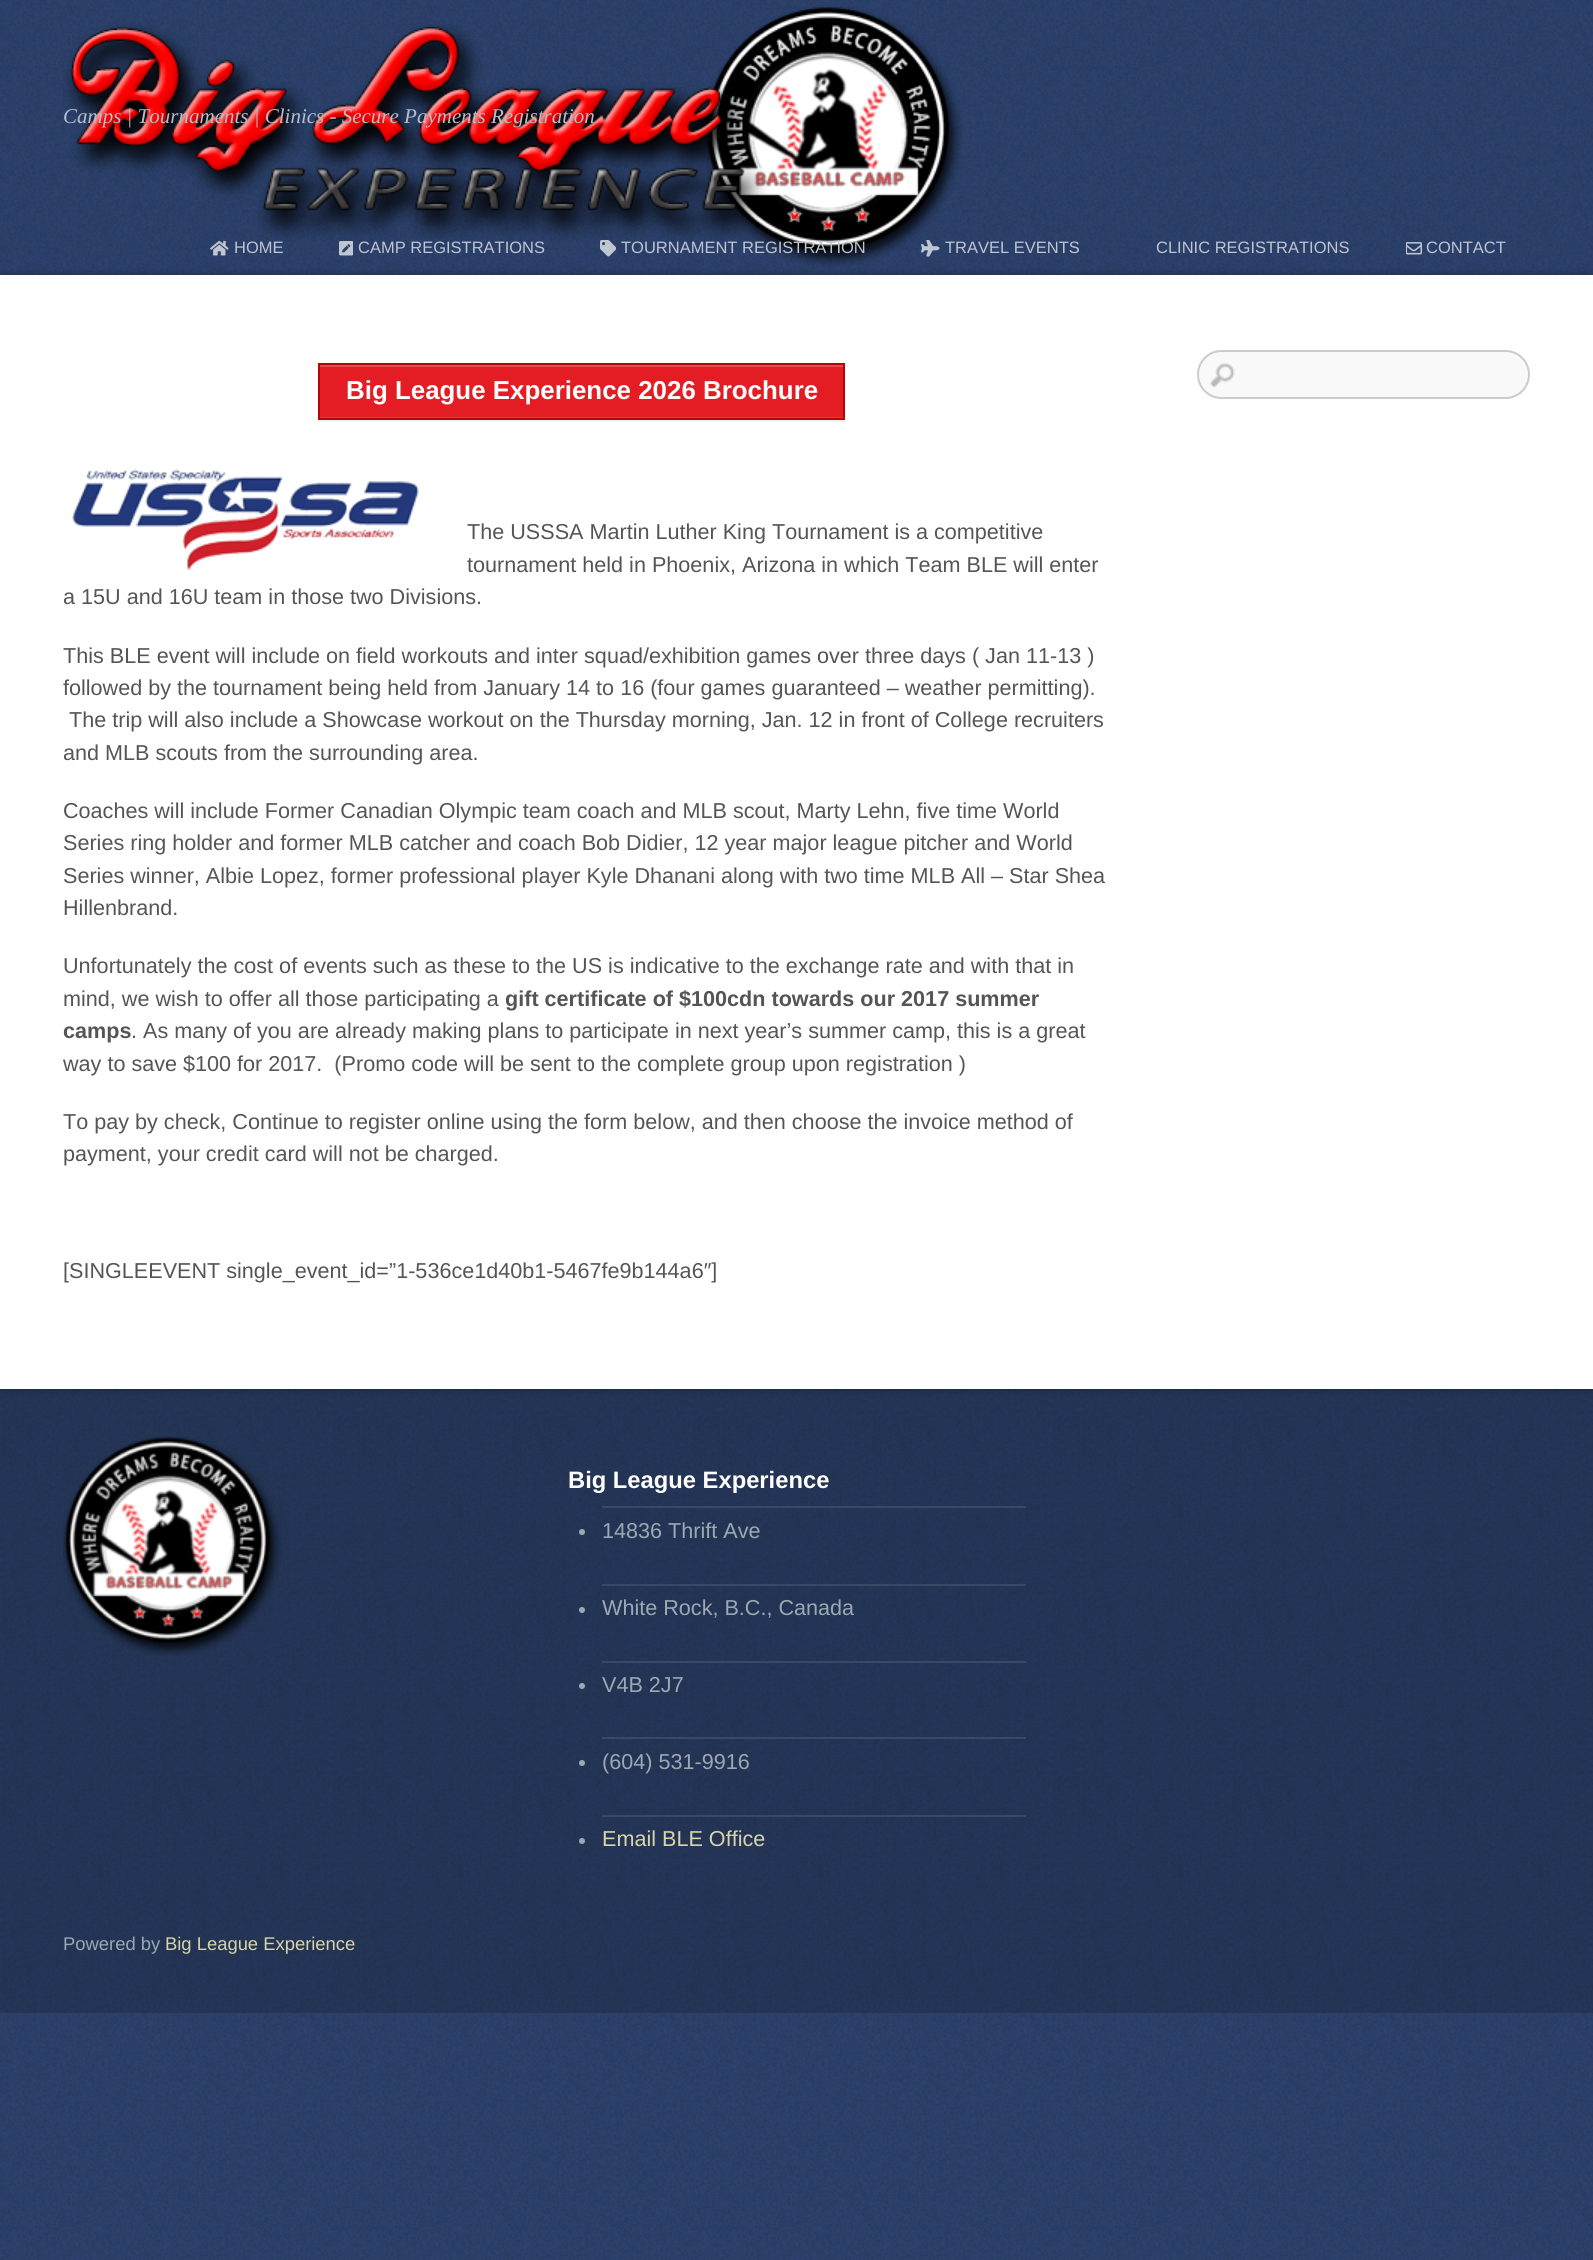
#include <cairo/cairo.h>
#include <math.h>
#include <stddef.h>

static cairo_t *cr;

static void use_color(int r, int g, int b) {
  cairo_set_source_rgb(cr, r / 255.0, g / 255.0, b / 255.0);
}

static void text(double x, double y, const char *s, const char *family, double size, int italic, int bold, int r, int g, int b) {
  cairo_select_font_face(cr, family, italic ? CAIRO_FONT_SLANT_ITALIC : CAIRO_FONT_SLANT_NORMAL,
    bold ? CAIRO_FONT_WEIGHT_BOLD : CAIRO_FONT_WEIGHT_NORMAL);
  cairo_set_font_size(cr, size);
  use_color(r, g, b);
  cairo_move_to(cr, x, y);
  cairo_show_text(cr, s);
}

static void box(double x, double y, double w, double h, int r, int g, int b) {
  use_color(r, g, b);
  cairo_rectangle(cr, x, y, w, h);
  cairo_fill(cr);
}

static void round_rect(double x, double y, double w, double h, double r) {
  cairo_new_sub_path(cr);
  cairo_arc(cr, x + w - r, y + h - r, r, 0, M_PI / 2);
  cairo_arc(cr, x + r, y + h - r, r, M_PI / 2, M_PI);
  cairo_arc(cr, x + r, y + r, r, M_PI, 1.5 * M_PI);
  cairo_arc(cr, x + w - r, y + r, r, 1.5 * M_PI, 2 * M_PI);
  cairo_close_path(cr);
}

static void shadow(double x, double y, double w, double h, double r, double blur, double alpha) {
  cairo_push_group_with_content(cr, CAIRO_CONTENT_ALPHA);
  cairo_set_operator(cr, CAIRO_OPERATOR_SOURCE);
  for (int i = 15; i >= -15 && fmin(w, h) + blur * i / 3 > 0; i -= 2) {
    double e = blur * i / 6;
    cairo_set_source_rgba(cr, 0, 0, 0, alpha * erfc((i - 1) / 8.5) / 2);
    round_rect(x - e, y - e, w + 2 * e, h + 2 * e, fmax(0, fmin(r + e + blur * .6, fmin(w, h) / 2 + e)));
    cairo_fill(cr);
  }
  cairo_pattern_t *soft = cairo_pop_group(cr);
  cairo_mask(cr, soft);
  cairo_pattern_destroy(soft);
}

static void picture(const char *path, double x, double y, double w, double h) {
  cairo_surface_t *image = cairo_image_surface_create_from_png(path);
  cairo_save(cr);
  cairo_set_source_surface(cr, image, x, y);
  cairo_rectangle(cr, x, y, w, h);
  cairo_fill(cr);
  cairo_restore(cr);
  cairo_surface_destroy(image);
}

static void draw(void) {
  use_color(255, 255, 255);
  cairo_paint(cr);
  picture("img_01.png", 0, 0, 1593, 2260);
  picture("img_10.png", 0, 1389, 1593, 624);
  use_color(0, 0, 0);
  shadow(0, 275, 1593, 1114, 0, 4.5, 0.3);
  picture("img_02.png", 63, 6, 900, 261);
  picture("img_03.png", 210, 241, 19, 15);
  picture("img_04.png", 339, 241, 14, 15);
  picture("img_05.png", 600, 240, 16, 17);
  picture("img_06.png", 921, 240, 19, 17);
  picture("img_07.png", 1406, 242, 16, 13);
  box(0, 275, 1593, 1114, 255, 255, 255);
  use_color(249, 249, 249);
  round_rect(1197, 350, 333, 49, 24.5);
  cairo_fill(cr);
  picture("img_08.png", 1210, 363, 25, 24);
  round_rect(1198, 351, 331, 47, 23.5);
  use_color(204, 204, 204);
  cairo_stroke(cr);
  use_color(242, 242, 242);
  cairo_new_path(cr);
  cairo_move_to(cr, 318, 420);
  cairo_line_to(cr, 318, 422);
  cairo_line_to(cr, 845, 422);
  cairo_line_to(cr, 845, 365);
  cairo_line_to(cr, 844, 365);
  cairo_line_to(cr, 844, 420);
  cairo_close_path(cr);
  cairo_fill(cr);
  box(320, 367, 523, 50, 228, 29, 36);
  box(320, 417, 523, 1, 231, 52, 58);
  box(320, 365, 523, 2, 233, 74, 80);
  cairo_rectangle(cr, 319, 364, 525, 55);
  use_color(176, 7, 4);
  cairo_stroke(cr);
  picture("img_09.png", 71, 469, 348, 102);
  picture("img_11.png", 63, 1436, 218, 220);
  box(602, 1506, 424, 2, 57, 72, 101);
  use_color(156, 168, 179);
  cairo_arc(cr, 582, 1532, 3, 0, 2 * M_PI);
  cairo_fill(cr);
  box(602, 1584, 424, 2, 57, 72, 101);
  use_color(156, 168, 179);
  cairo_arc(cr, 582, 1610, 3, 0, 2 * M_PI);
  cairo_fill(cr);
  box(602, 1661, 424, 2, 57, 72, 101);
  use_color(156, 168, 179);
  cairo_arc(cr, 582, 1686, 3, 0, 2 * M_PI);
  cairo_fill(cr);
  box(602, 1737, 424, 2, 57, 72, 101);
  use_color(156, 168, 179);
  cairo_arc(cr, 582, 1763, 3, 0, 2 * M_PI);
  cairo_fill(cr);
  box(602, 1815, 424, 2, 57, 72, 101);
  use_color(156, 168, 179);
  cairo_arc(cr, 582, 1841, 3, 0, 2 * M_PI);
  cairo_fill(cr);
  text(63, 123, "Camps | Tournaments | Clinics - Secure Payments Registration", "Liberation Serif", 21, 1, 0, 182, 189, 204);
  text(234, 253, "HOME", "Liberation Sans", 16.5, 0, 0, 191, 197, 209);
  text(358, 253, "CAMP REGISTRATIONS", "Liberation Sans", 16.5, 0, 0, 191, 197, 209);
  text(621, 253, "TOURNAMENT REGISTRATION", "Liberation Sans", 16.5, 0, 0, 191, 197, 209);
  text(945, 253, "TRAVEL EVENTS", "Liberation Sans", 16.5, 0, 0, 191, 197, 209);
  text(1156, 253, "CLINIC REGISTRATIONS", "Liberation Sans", 16.5, 0, 0, 191, 197, 209);
  text(1426, 253, "CONTACT", "Liberation Sans", 16.5, 0, 0, 191, 197, 209);
  text(346, 399, "Big League Experience 2026 Brochure", "Liberation Sans", 25.9, 0, 1, 255, 255, 255);
  text(467, 539, "The USSSA Martin Luther King Tournament is a competitive", "Liberation Sans", 21.6, 0, 0, 85, 85, 85);
  text(467, 572, "tournament held in Phoenix, Arizona in which Team BLE will enter", "Liberation Sans", 21.6, 0, 0, 85, 85, 85);
  text(63, 604, "a 15U and 16U team in those two Divisions.", "Liberation Sans", 21.6, 0, 0, 85, 85, 85);
  text(63, 663, "This BLE event will include on field workouts and inter squad/exhibition games over three days ( Jan 11-13 )", "Liberation Sans", 21.6, 0, 0, 85, 85, 85);
  text(63, 695, "followed by the tournament being held from January 14 to 16 (four games guaranteed – weather permitting).", "Liberation Sans", 21.6, 0, 0, 85, 85, 85);
  text(69, 727, "The trip will also include a Showcase workout on the Thursday morning, Jan. 12 in front of College recruiters", "Liberation Sans", 21.6, 0, 0, 85, 85, 85);
  text(63, 760, "and MLB scouts from the surrounding area.", "Liberation Sans", 21.6, 0, 0, 85, 85, 85);
  text(63, 818, "Coaches will include Former Canadian Olympic team coach and MLB scout, Marty Lehn, five time World", "Liberation Sans", 21.6, 0, 0, 85, 85, 85);
  text(63, 850, "Series ring holder and former MLB catcher and coach Bob Didier, 12 year major league pitcher and World", "Liberation Sans", 21.6, 0, 0, 85, 85, 85);
  text(63, 883, "Series winner, Albie Lopez, former professional player Kyle Dhanani along with two time MLB All – Star Shea", "Liberation Sans", 21.6, 0, 0, 85, 85, 85);
  text(63, 915, "Hillenbrand.", "Liberation Sans", 21.6, 0, 0, 85, 85, 85);
  text(63, 973, "Unfortunately the cost of events such as these to the US is indicative to the exchange rate and with that in", "Liberation Sans", 21.6, 0, 0, 85, 85, 85);
  text(63, 1006, "mind, we wish to offer all those participating a", "Liberation Sans", 21.6, 0, 0, 85, 85, 85);
  text(505, 1006, "gift certificate of $100cdn towards our 2017 summer", "Liberation Sans", 21.6, 0, 1, 85, 85, 85);
  text(63, 1038, "camps", "Liberation Sans", 21.6, 0, 1, 85, 85, 85);
  text(131, 1038, ". As many of you are already making plans to participate in next year’s summer camp, this is a great", "Liberation Sans", 21.6, 0, 0, 85, 85, 85);
  text(63, 1071, "way to save $100 for 2017.  (Promo code will be sent to the complete group upon registration )", "Liberation Sans", 21.6, 0, 0, 85, 85, 85);
  text(63, 1129, "To pay by check, Continue to register online using the form below, and then choose the invoice method of", "Liberation Sans", 21.6, 0, 0, 85, 85, 85);
  text(63, 1161, "payment, your credit card will not be charged.", "Liberation Sans", 21.6, 0, 0, 85, 85, 85);
  text(63, 1278, "[SINGLEEVENT single_event_id=”1-536ce1d40b1-5467fe9b144a6″]", "Liberation Sans", 21.6, 0, 0, 85, 85, 85);
  text(568, 1488, "Big League Experience", "Liberation Sans", 23.75, 0, 1, 255, 255, 255);
  text(602, 1538, "14836 Thrift Ave", "Liberation Sans", 21.6, 0, 0, 156, 168, 179);
  text(602, 1615, "White Rock, B.C., Canada", "Liberation Sans", 21.6, 0, 0, 156, 168, 179);
  text(602, 1692, "V4B 2J7", "Liberation Sans", 21.6, 0, 0, 156, 168, 179);
  text(602, 1769, "(604) 531-9916", "Liberation Sans", 21.6, 0, 0, 156, 168, 179);
  text(602, 1846, "Email BLE Office", "Liberation Sans", 21.6, 0, 0, 216, 212, 171);
  text(63, 1950, "Powered by", "Liberation Sans", 18.4, 0, 0, 156, 168, 179);
  text(165, 1950, "Big League Experience", "Liberation Sans", 18.4, 0, 0, 216, 212, 171);
}

int main(void) {
  cairo_surface_t *surface = cairo_image_surface_create(CAIRO_FORMAT_RGB24, 1593, 2260);
  cr = cairo_create(surface);
  cairo_font_options_t *options = cairo_font_options_create();
  cairo_font_options_set_hint_metrics(options, CAIRO_HINT_METRICS_OFF);
  cairo_font_options_set_hint_style(options, CAIRO_HINT_STYLE_NONE);
  cairo_set_font_options(cr, options);
  cairo_set_miter_limit(cr, 4);
  draw();
  cairo_surface_write_to_png(surface, "out.png");
  cairo_font_options_destroy(options);
  cairo_destroy(cr);
  cairo_surface_destroy(surface);
  return 0;
}
